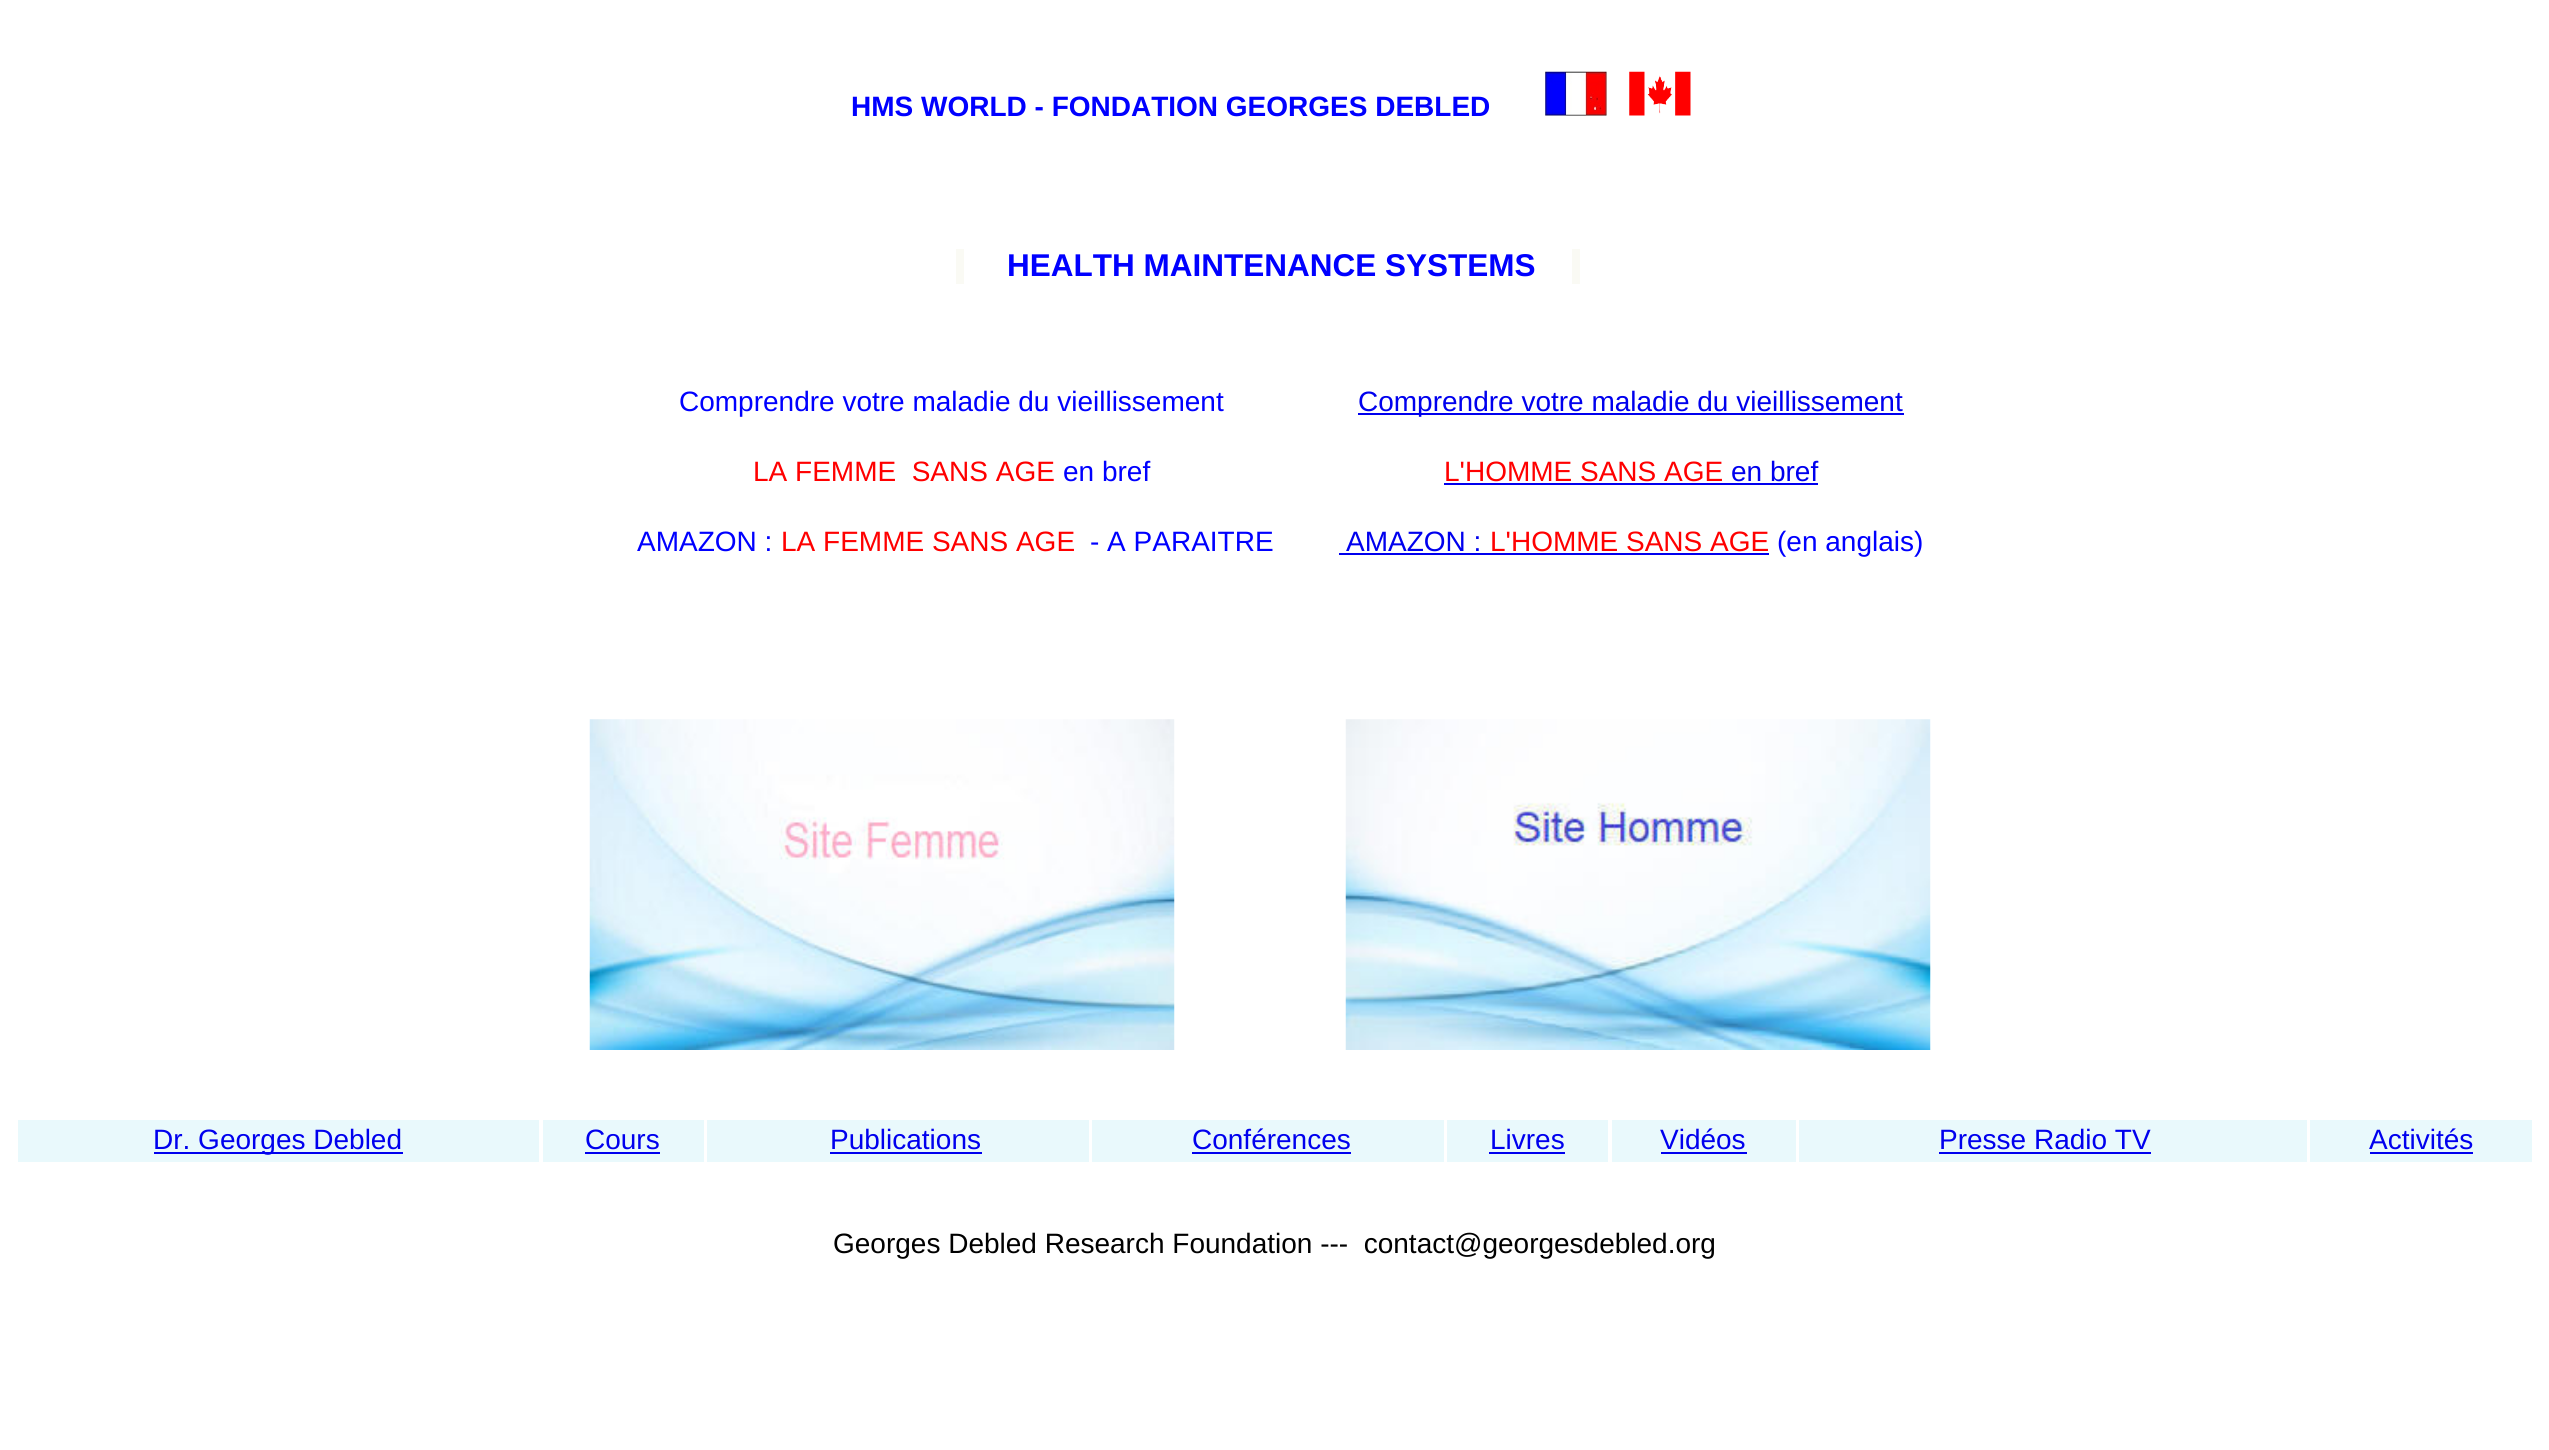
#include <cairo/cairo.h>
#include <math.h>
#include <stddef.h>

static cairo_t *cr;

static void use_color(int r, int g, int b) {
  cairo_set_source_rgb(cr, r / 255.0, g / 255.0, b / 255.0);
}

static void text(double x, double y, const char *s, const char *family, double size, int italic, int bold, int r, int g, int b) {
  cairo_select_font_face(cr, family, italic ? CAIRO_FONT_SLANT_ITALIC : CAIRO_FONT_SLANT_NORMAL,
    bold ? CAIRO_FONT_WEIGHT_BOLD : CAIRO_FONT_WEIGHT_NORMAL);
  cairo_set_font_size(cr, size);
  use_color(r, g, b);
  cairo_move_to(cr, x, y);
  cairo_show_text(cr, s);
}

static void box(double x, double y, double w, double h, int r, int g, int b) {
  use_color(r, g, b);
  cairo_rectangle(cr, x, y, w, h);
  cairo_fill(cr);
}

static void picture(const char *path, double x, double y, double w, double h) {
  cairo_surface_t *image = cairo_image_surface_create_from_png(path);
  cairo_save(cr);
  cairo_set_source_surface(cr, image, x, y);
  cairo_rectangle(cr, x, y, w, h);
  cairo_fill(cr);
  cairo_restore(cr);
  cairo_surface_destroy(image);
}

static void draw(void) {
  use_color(255, 255, 255);
  cairo_paint(cr);
  picture("img_01.png", 1545, 71, 62, 45);
  picture("img_02.png", 1629, 71, 62, 45);
  box(956, 249, 8, 35, 250, 250, 244);
  box(1572, 249, 8, 35, 250, 250, 244);
  box(1358, 413, 546, 2, 0, 0, 238);
  box(1444, 483, 374, 2, 0, 0, 238);
  box(1339, 553, 430, 2, 0, 0, 238);
  picture("img_03.png", 589, 719, 586, 331);
  picture("img_04.png", 1345, 719, 586, 331);
  box(18, 1120, 521, 42, 233, 249, 252);
  box(154, 1152, 249, 2, 0, 0, 238);
  box(543, 1120, 161, 42, 233, 249, 252);
  box(585, 1152, 75, 2, 0, 0, 238);
  box(707, 1120, 382, 42, 233, 249, 252);
  box(830, 1152, 152, 2, 0, 0, 238);
  box(1092, 1120, 352, 42, 233, 249, 252);
  box(1192, 1152, 159, 2, 0, 0, 238);
  box(1447, 1120, 161, 42, 233, 249, 252);
  box(1489, 1152, 76, 2, 0, 0, 238);
  box(1612, 1120, 184, 42, 233, 249, 252);
  box(1661, 1152, 86, 2, 0, 0, 238);
  box(1799, 1120, 508, 42, 233, 249, 252);
  box(1939, 1152, 212, 2, 0, 0, 238);
  box(2310, 1120, 222, 42, 233, 249, 252);
  box(2370, 1152, 103, 2, 0, 0, 238);
  text(851, 116, "HMS WORLD - FONDATION GEORGES DEBLED", "Liberation Sans", 28, 0, 1, 0, 0, 255);
  text(1007, 276, "HEALTH MAINTENANCE SYSTEMS", "Liberation Sans", 31.5, 0, 1, 0, 0, 255);
  text(679, 411, "Comprendre votre maladie du vieillissement", "Liberation Sans", 28, 0, 0, 0, 0, 255);
  text(753, 481, "LA FEMME  SANS AGE", "Liberation Sans", 28, 0, 0, 255, 0, 0);
  text(1063, 481, "en bref", "Liberation Sans", 28, 0, 0, 0, 0, 255);
  text(637, 551, "AMAZON :", "Liberation Sans", 28, 0, 0, 0, 0, 255);
  text(781, 551, "LA FEMME SANS AGE", "Liberation Sans", 28, 0, 0, 255, 0, 0);
  text(1090, 551, "- A PARAITRE", "Liberation Sans", 28, 0, 0, 0, 0, 255);
  text(1358, 411, "Comprendre votre maladie du vieillissement", "Liberation Sans", 28, 0, 0, 0, 0, 238);
  text(1444, 481, "L'HOMME SANS AGE", "Liberation Sans", 28, 0, 0, 255, 0, 0);
  text(1731, 481, "en bref", "Liberation Sans", 28, 0, 0, 0, 0, 238);
  text(1346, 551, "AMAZON :", "Liberation Sans", 28, 0, 0, 0, 0, 238);
  text(1490, 551, "L'HOMME SANS AGE", "Liberation Sans", 28, 0, 0, 255, 0, 0);
  text(1777, 551, "(en anglais)", "Liberation Sans", 28, 0, 0, 0, 0, 255);
  text(153, 1149, "Dr. Georges Debled", "Liberation Sans", 28, 0, 0, 0, 0, 238);
  text(585, 1149, "Cours", "Liberation Sans", 28, 0, 0, 0, 0, 238);
  text(830, 1149, "Publications", "Liberation Sans", 28, 0, 0, 0, 0, 238);
  text(1192, 1149, "Conférences", "Liberation Sans", 28, 0, 0, 0, 0, 238);
  text(1490, 1149, "Livres", "Liberation Sans", 28, 0, 0, 0, 0, 238);
  text(1660, 1149, "Vidéos", "Liberation Sans", 28, 0, 0, 0, 0, 238);
  text(1939, 1149, "Presse Radio TV", "Liberation Sans", 28, 0, 0, 0, 0, 238);
  text(2369, 1149, "Activités", "Liberation Sans", 28, 0, 0, 0, 0, 238);
  text(833, 1253, "Georges Debled Research Foundation ---  contact@georgesdebled.org", "Liberation Sans", 28, 0, 0, 0, 0, 0);
}

int main(void) {
  cairo_surface_t *surface = cairo_image_surface_create(CAIRO_FORMAT_RGB24, 2549, 1450);
  cr = cairo_create(surface);
  cairo_font_options_t *options = cairo_font_options_create();
  cairo_font_options_set_hint_metrics(options, CAIRO_HINT_METRICS_OFF);
  cairo_font_options_set_hint_style(options, CAIRO_HINT_STYLE_NONE);
  cairo_set_font_options(cr, options);
  cairo_set_miter_limit(cr, 4);
  draw();
  cairo_surface_write_to_png(surface, "out.png");
  cairo_font_options_destroy(options);
  cairo_destroy(cr);
  cairo_surface_destroy(surface);
  return 0;
}
